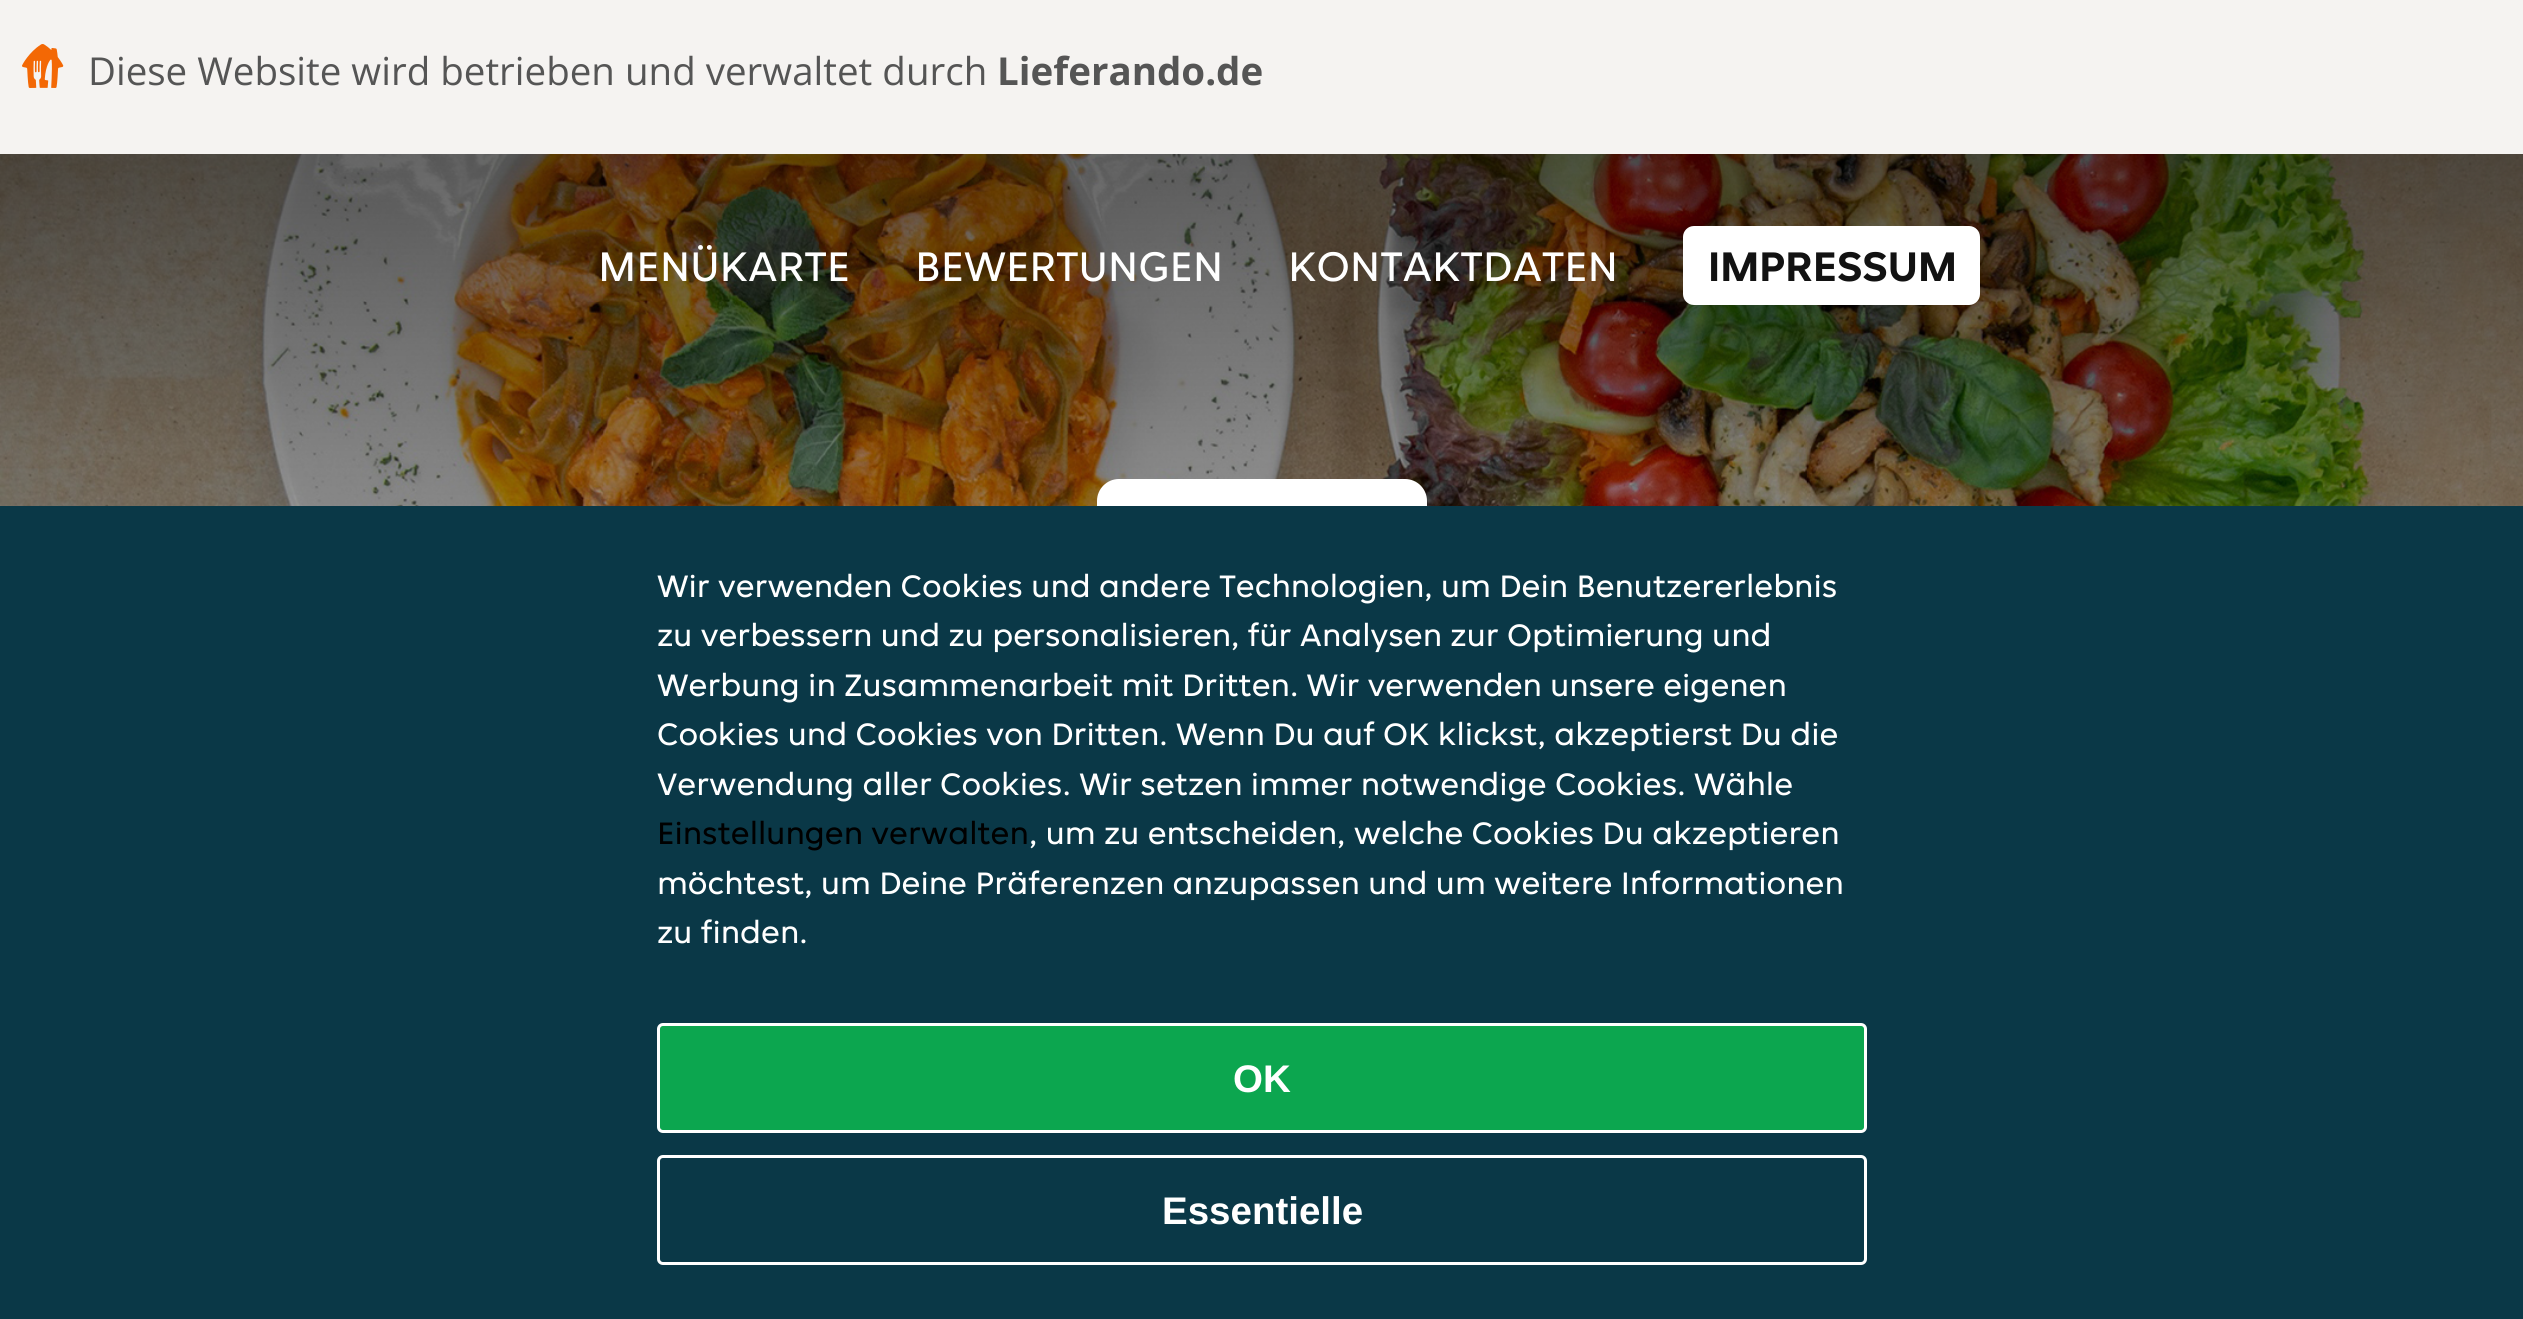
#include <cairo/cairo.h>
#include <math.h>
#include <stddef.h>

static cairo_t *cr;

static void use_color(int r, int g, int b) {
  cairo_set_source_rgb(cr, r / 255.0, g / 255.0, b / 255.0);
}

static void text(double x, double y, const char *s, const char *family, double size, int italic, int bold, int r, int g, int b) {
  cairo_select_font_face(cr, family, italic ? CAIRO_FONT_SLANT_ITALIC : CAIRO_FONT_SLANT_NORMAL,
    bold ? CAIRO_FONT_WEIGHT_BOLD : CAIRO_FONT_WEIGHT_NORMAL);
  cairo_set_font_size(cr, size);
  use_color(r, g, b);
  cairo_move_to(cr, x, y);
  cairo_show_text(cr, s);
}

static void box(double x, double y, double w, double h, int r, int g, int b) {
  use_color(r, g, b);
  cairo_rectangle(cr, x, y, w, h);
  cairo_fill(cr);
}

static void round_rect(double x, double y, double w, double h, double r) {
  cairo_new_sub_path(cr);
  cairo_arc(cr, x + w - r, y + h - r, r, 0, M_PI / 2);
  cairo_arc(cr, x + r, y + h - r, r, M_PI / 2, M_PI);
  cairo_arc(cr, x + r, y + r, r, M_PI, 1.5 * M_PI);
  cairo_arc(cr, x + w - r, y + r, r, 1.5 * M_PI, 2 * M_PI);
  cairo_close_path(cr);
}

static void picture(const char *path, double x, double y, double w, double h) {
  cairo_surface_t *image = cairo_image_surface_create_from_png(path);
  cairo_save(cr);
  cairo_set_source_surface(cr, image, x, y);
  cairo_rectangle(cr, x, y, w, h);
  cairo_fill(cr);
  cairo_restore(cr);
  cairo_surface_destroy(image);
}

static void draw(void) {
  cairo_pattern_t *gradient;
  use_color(255, 255, 255);
  cairo_paint(cr);
  box(0, 0, 2523, 154, 245, 243, 241);
  picture("img_01.png", 22, 44, 42, 44);
  picture("img_02.png", 0, 154, 2523, 352);
  gradient = cairo_pattern_create_linear(1262, 0, 1262, 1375);
  cairo_pattern_add_color_stop_rgba(gradient, 0, 0, 0, 0, 0.7);
  cairo_pattern_add_color_stop_rgba(gradient, 0.33, 0, 0, 0, 0.4);
  cairo_pattern_add_color_stop_rgba(gradient, 0.67, 0, 0, 0, 0.2);
  cairo_pattern_add_color_stop_rgba(gradient, 1, 0, 0, 0, 0);
  cairo_set_source(cr, gradient);
  cairo_pattern_destroy(gradient);
  cairo_rectangle(cr, 0, 154, 2523, 352);
  cairo_fill(cr);
  use_color(255, 255, 255);
  round_rect(1683, 226, 297, 79, 11);
  cairo_fill(cr);
  round_rect(1097, 479, 330, 330, 22);
  cairo_fill(cr);
  box(0, 506, 2523, 813, 10, 56, 71);
  use_color(12, 166, 79);
  round_rect(658.5, 1024.5, 1207, 107, 4.5);
  cairo_fill_preserve(cr);
  use_color(255, 255, 255);
  cairo_set_line_width(cr, 3);
  cairo_stroke(cr);
  round_rect(658.5, 1156.5, 1207, 107, 4.5);
  cairo_stroke(cr);
  text(88, 85, "Diese Website wird betrieben und verwaltet durch", "Open Sans", 38.5, 0, 0, 85, 85, 85);
  text(997, 85, "Lieferando.de", "Open Sans", 38.5, 0, 1, 85, 85, 85);
  text(598, 281, "MENÜKARTE", "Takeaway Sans", 44, 0, 0, 255, 255, 255);
  text(915, 281, "BEWERTUNGEN", "Takeaway Sans", 44, 0, 0, 255, 255, 255);
  text(1288, 281, "KONTAKTDATEN", "Takeaway Sans", 44, 0, 0, 255, 255, 255);
  text(1708, 281, "IMPRESSUM", "Takeaway Sans", 44, 0, 1, 18, 18, 18);
  text(657, 597, "Wir verwenden Cookies und andere Technologien, um Dein Benutzererlebnis", "Takeaway Sans", 33, 0, 0, 255, 255, 255);
  text(657, 646, "zu verbessern und zu personalisieren, für Analysen zur Optimierung und", "Takeaway Sans", 33, 0, 0, 255, 255, 255);
  text(657, 696, "Werbung in Zusammenarbeit mit Dritten. Wir verwenden unsere eigenen", "Takeaway Sans", 33, 0, 0, 255, 255, 255);
  text(657, 745, "Cookies und Cookies von Dritten. Wenn Du auf OK klickst, akzeptierst Du die", "Takeaway Sans", 33, 0, 0, 255, 255, 255);
  text(657, 795, "Verwendung aller Cookies. Wir setzen immer notwendige Cookies. Wähle", "Takeaway Sans", 33, 0, 0, 255, 255, 255);
  text(657, 844, "Einstellungen verwalten", "Takeaway Sans", 33, 0, 0, 0, 0, 0);
  text(1029, 844, ", um zu entscheiden, welche Cookies Du akzeptieren", "Takeaway Sans", 33, 0, 0, 255, 255, 255);
  text(657, 894, "möchtest, um Deine Präferenzen anzupassen und um weitere Informationen", "Takeaway Sans", 33, 0, 0, 255, 255, 255);
  text(657, 943, "zu finden.", "Takeaway Sans", 33, 0, 0, 255, 255, 255);
  text(1233, 1092, "OK", "Liberation Sans", 38.5, 0, 1, 255, 255, 255);
  text(1162, 1224, "Essentielle", "Liberation Sans", 38.5, 0, 1, 255, 255, 255);
}

int main(void) {
  cairo_surface_t *surface = cairo_image_surface_create(CAIRO_FORMAT_RGB24, 2523, 1319);
  cr = cairo_create(surface);
  cairo_font_options_t *options = cairo_font_options_create();
  cairo_font_options_set_hint_metrics(options, CAIRO_HINT_METRICS_OFF);
  cairo_font_options_set_hint_style(options, CAIRO_HINT_STYLE_NONE);
  cairo_set_font_options(cr, options);
  cairo_set_miter_limit(cr, 4);
  draw();
  cairo_surface_write_to_png(surface, "out.png");
  cairo_font_options_destroy(options);
  cairo_destroy(cr);
  cairo_surface_destroy(surface);
  return 0;
}
